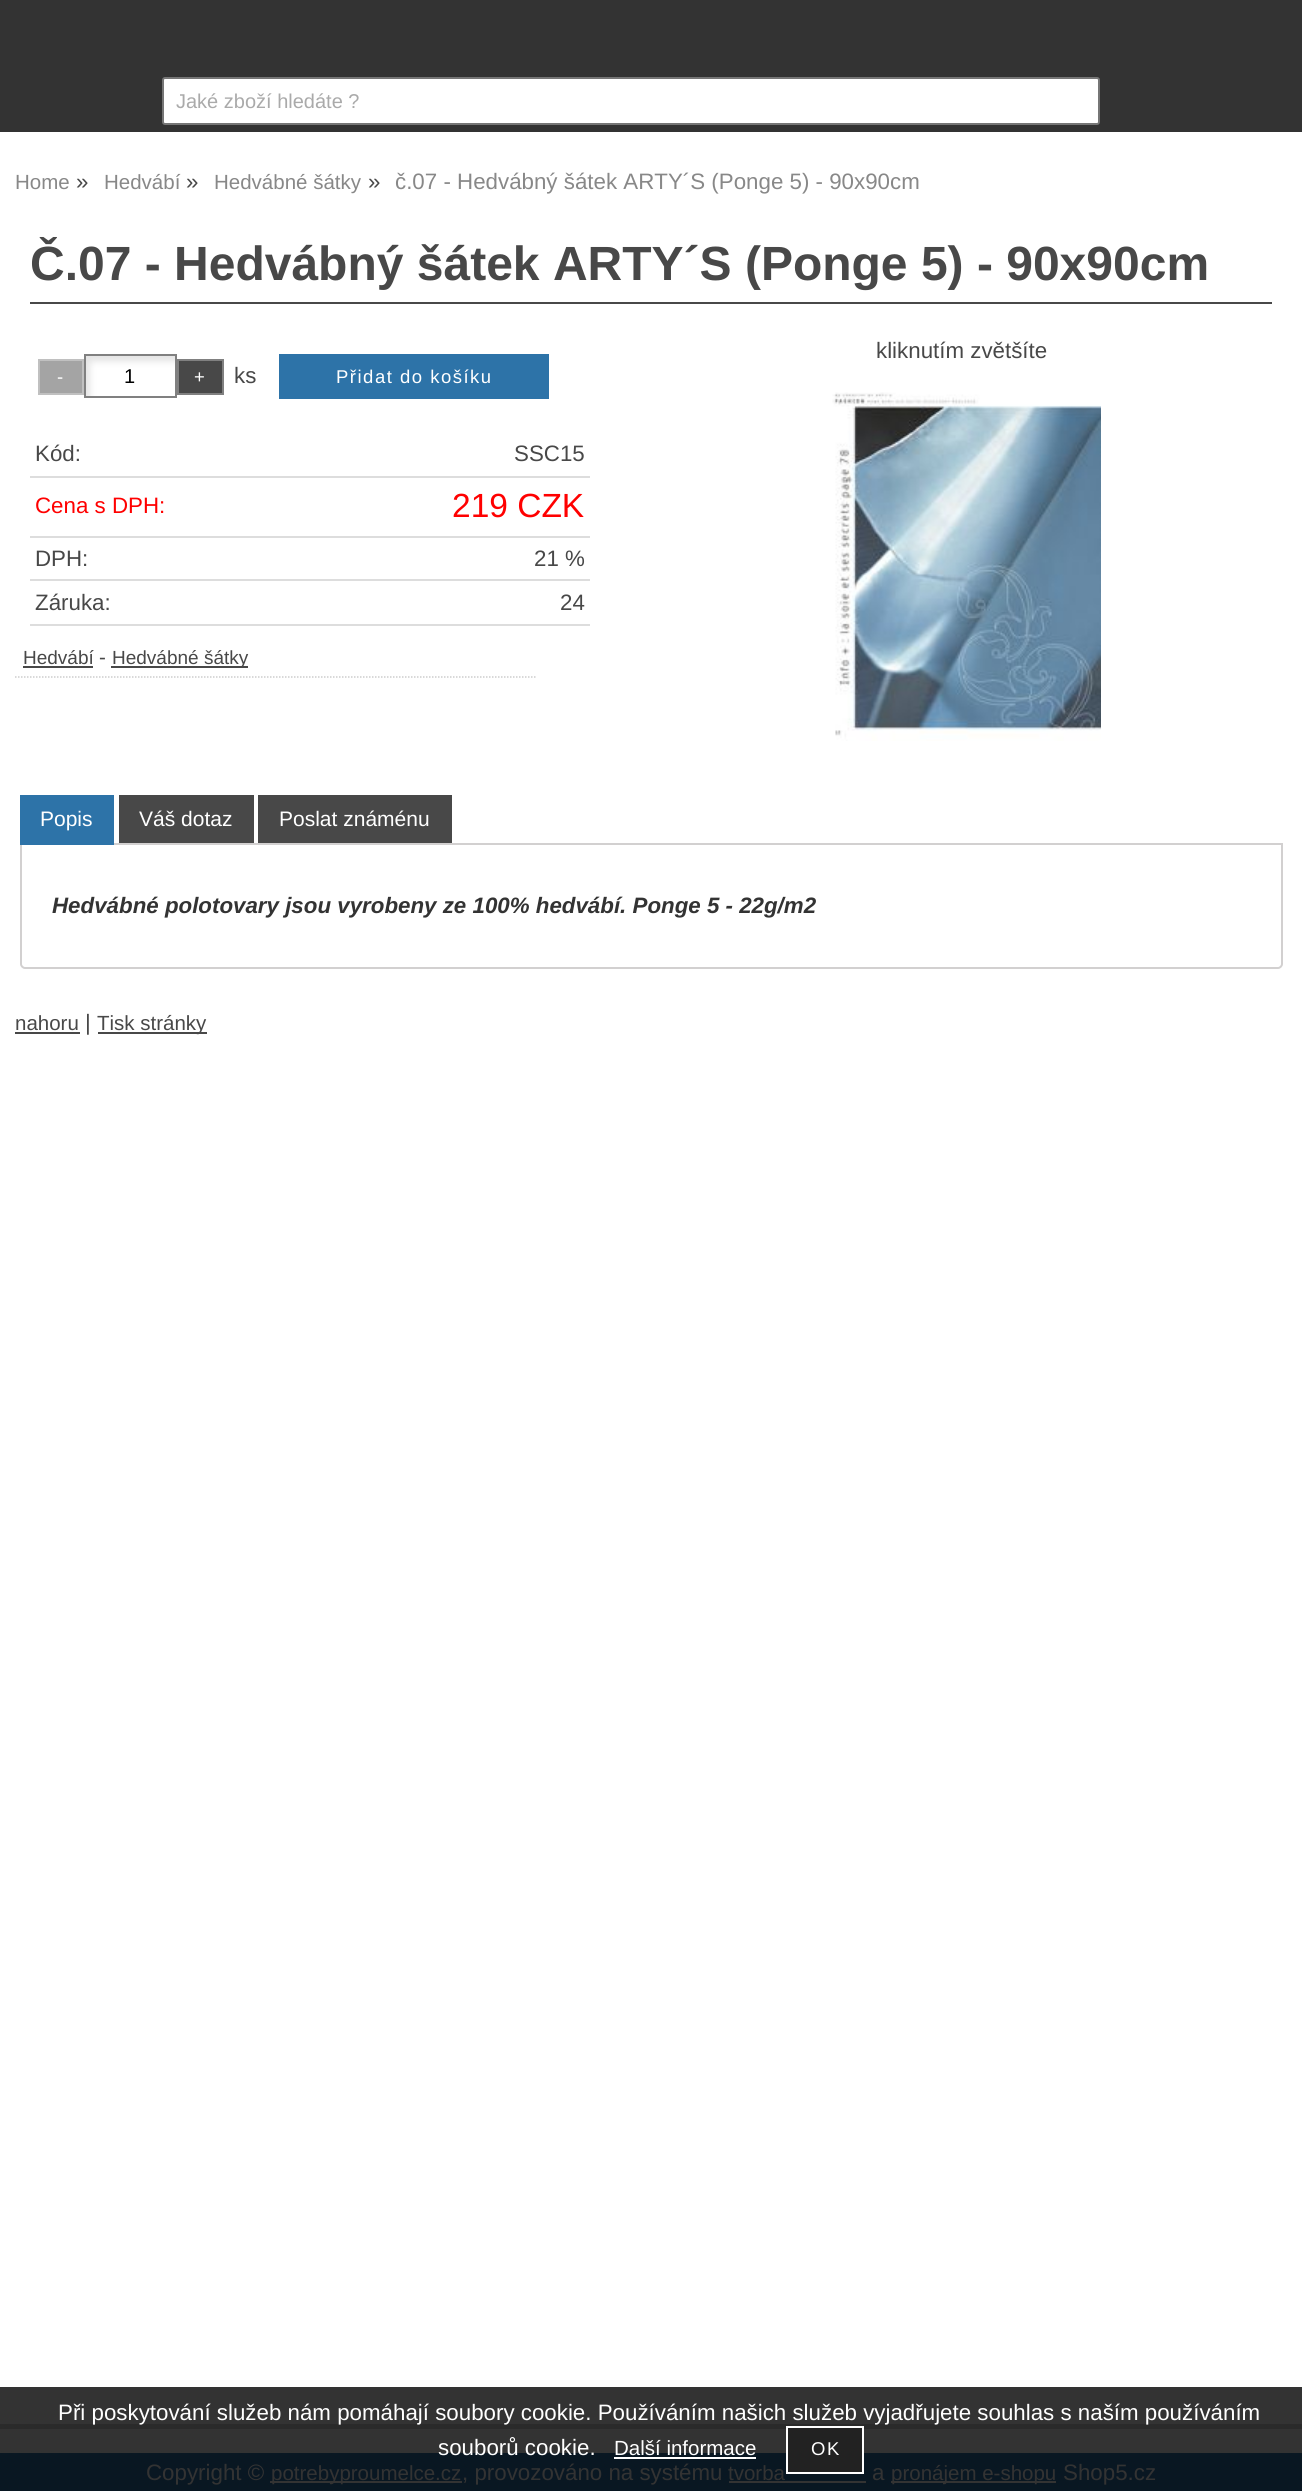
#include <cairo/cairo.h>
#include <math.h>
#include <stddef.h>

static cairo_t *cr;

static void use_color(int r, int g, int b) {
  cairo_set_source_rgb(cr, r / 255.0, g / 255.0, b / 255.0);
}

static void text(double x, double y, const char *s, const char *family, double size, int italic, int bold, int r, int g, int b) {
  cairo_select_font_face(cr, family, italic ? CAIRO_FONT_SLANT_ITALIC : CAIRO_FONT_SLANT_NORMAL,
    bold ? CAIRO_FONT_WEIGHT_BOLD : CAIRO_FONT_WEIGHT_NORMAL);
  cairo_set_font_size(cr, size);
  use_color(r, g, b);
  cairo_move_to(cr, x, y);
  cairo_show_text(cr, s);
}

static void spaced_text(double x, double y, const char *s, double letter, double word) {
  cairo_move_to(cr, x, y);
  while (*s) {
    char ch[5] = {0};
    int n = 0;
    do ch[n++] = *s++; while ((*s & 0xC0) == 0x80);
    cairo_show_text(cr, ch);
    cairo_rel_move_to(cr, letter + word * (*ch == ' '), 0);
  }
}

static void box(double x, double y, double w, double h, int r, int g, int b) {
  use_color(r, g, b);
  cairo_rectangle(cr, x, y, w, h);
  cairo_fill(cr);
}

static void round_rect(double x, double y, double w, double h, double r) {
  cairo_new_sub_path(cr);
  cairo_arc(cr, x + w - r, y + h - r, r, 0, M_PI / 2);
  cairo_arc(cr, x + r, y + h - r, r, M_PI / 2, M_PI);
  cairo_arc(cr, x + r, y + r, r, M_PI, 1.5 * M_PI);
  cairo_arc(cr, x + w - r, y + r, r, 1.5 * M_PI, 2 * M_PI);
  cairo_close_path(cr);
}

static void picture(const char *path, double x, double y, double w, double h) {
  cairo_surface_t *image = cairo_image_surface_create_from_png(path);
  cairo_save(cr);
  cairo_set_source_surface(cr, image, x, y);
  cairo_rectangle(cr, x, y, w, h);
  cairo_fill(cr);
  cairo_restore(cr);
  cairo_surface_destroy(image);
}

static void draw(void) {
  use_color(255, 255, 255);
  cairo_paint(cr);
  box(0, 2387, 1302, 66, 51, 51, 51);
  box(0, 0, 1302, 132, 51, 51, 51);
  use_color(255, 255, 255);
  round_rect(163, 78, 936, 46, 2);
  cairo_fill_preserve(cr);
  use_color(118, 118, 118);
  cairo_stroke(cr);
  box(30, 302, 1242, 2, 72, 72, 72);
  picture("img_01.png", 832, 392, 269, 349);
  use_color(164, 164, 164);
  cairo_rectangle(cr, 39, 360, 44, 34);
  cairo_fill_preserve(cr);
  use_color(192, 192, 192);
  cairo_stroke(cr);
  picture("img_02.png", 86, 356, 89, 40);
  cairo_rectangle(cr, 85, 355, 91, 42);
  use_color(128, 128, 128);
  cairo_stroke(cr);
  use_color(72, 72, 72);
  cairo_rectangle(cr, 178, 360, 45, 34);
  cairo_fill_preserve(cr);
  use_color(128, 128, 128);
  cairo_stroke(cr);
  box(279, 354, 270, 45, 45, 115, 168);
  box(30, 476, 560, 2, 221, 221, 221);
  box(30, 536, 560, 2, 221, 221, 221);
  box(30, 579, 560, 2, 221, 221, 221);
  box(30, 624, 560, 2, 221, 221, 221);
  cairo_new_path(cr);
  cairo_move_to(cr, 15, 677);
  cairo_line_to(cr, 535.5, 677);
  use_color(204, 204, 204);
  cairo_set_line_width(cr, 1.5);
  cairo_set_dash(cr, (double[]){1.5, 1.5}, 2, 0);
  cairo_stroke(cr);
  box(23, 666, 70, 2, 72, 72, 72);
  box(111, 666, 137, 2, 72, 72, 72);
  cairo_new_path(cr);
  cairo_move_to(cr, 21, 844);
  cairo_line_to(cr, 1282, 844);
  cairo_line_to(cr, 1282, 964);
  cairo_curve_to(cr, 1282, 966, 1280, 968, 1278, 968);
  cairo_line_to(cr, 25, 968);
  cairo_curve_to(cr, 23, 968, 21, 966, 21, 964);
  cairo_close_path(cr);
  use_color(210, 208, 208);
  cairo_set_line_width(cr, 2);
  cairo_set_dash(cr, NULL, 0, 0);
  cairo_stroke(cr);
  box(20, 795, 94, 50, 45, 115, 168);
  box(119, 795, 135, 48, 72, 72, 72);
  box(258, 795, 194, 48, 72, 72, 72);
  box(15, 1032, 65, 2, 72, 72, 72);
  box(98, 1032, 109, 2, 72, 72, 72);
  box(0, 2424, 1302, 5, 42, 42, 42);
  box(0, 2453, 1302, 38, 9, 23, 34);
  box(270, 2481, 192, 2, 51, 51, 51);
  box(729, 2481, 137, 2, 51, 51, 51);
  box(891, 2481, 165, 2, 51, 51, 51);
  box(614, 2457, 142, 2, 255, 255, 255);
  use_color(34, 34, 34);
  cairo_rectangle(cr, 787, 2427, 76, 46);
  cairo_fill_preserve(cr);
  use_color(255, 255, 255);
  cairo_stroke(cr);
  text(176, 108, "Jaké zboží hledáte ?", "Liberation Sans", 20, 0, 0, 170, 170, 170);
  text(15, 189, "Home", "Liberation Sans", 20.5, 0, 0, 136, 136, 136);
  text(76, 189, "»", "Liberation Sans", 22.32, 0, 0, 72, 72, 72);
  text(104, 189, "Hedvábí", "Liberation Sans", 20.5, 0, 0, 136, 136, 136);
  text(186, 189, "»", "Liberation Sans", 22.32, 0, 0, 72, 72, 72);
  text(214, 189, "Hedvábné šátky", "Liberation Sans", 20.5, 0, 0, 136, 136, 136);
  text(368, 189, "»", "Liberation Sans", 22.32, 0, 0, 72, 72, 72);
  text(395, 189, "č.07 - Hedvábný šátek ARTY´S (Ponge 5) - 90x90cm", "Liberation Sans", 22.32, 0, 0, 136, 136, 136);
  text(30, 280, "Č.07 - Hedvábný šátek ARTY´S (Ponge 5) - 90x90cm", "Liberation Sans", 48, 0, 1, 72, 72, 72);
  text(876, 358, "kliknutím zvětšíte", "Liberation Sans", 22.32, 0, 0, 72, 72, 72);
  cairo_set_font_size(cr, 18.5);
  use_color(255, 255, 255);
  spaced_text(57, 383, "-", 1.5, 0);
  cairo_set_font_size(cr, 20);
  use_color(0, 0, 0);
  spaced_text(124, 383, "1", 1.5, 0);
  cairo_set_font_size(cr, 18.5);
  use_color(255, 255, 255);
  spaced_text(194, 383, "+", 1.5, 0);
  text(234, 383, "ks", "Liberation Sans", 22.32, 0, 0, 72, 72, 72);
  cairo_set_font_size(cr, 18.5);
  use_color(255, 255, 255);
  spaced_text(336, 383, "Přidat do košíku", 1.5, 0);
  text(35, 461, "Kód:", "Liberation Sans", 22.32, 0, 0, 72, 72, 72);
  text(514, 461, "SSC15", "Liberation Sans", 22.32, 0, 0, 72, 72, 72);
  text(35, 513, "Cena s DPH:", "Liberation Sans", 22.32, 0, 0, 255, 0, 0);
  text(452, 517, "219 CZK", "Liberation Sans", 33.5, 0, 0, 255, 0, 0);
  text(35, 566, "DPH:", "Liberation Sans", 22.32, 0, 0, 72, 72, 72);
  text(534, 566, "21 %", "Liberation Sans", 22.32, 0, 0, 72, 72, 72);
  text(35, 610, "Záruka:", "Liberation Sans", 22.32, 0, 0, 72, 72, 72);
  text(560, 610, "24", "Liberation Sans", 22.32, 0, 0, 72, 72, 72);
  text(23, 664, "Hedvábí", "Liberation Sans", 19, 0, 0, 72, 72, 72);
  text(99, 664, "-", "Liberation Sans", 20.5, 0, 0, 72, 72, 72);
  text(112, 664, "Hedvábné šátky", "Liberation Sans", 19, 0, 0, 72, 72, 72);
  text(40, 826, "Popis", "Liberation Sans", 21, 0, 0, 255, 255, 255);
  text(139, 826, "Váš dotaz", "Liberation Sans", 21, 0, 0, 255, 255, 255);
  text(279, 826, "Poslat známénu", "Liberation Sans", 21, 0, 0, 255, 255, 255);
  text(52, 913, "Hedvábné polotovary jsou vyrobeny ze 100% hedvábí. Ponge 5 - 22g/m2", "Liberation Sans", 22.32, 1, 1, 51, 51, 51);
  text(15, 1030, "nahoru", "Liberation Sans", 20.5, 0, 0, 72, 72, 72);
  text(85, 1030, "|", "Liberation Sans", 22.32, 0, 0, 72, 72, 72);
  text(97, 1030, "Tisk stránky", "Liberation Sans", 20.5, 0, 0, 72, 72, 72);
  text(146, 2480, "Copyright ©", "Liberation Sans", 22.32, 0, 0, 51, 51, 51);
  text(271, 2480, "potrebyproumelce.cz", "Liberation Sans", 20.5, 0, 0, 51, 51, 51);
  text(462, 2480, ", provozováno na systému", "Liberation Sans", 22.32, 0, 0, 51, 51, 51);
  text(728, 2480, "tvorba", "Liberation Sans", 20.5, 0, 0, 51, 51, 51);
  text(872, 2480, "a", "Liberation Sans", 22.32, 0, 0, 51, 51, 51);
  text(891, 2480, "pronájem e-shopu", "Liberation Sans", 20.5, 0, 0, 51, 51, 51);
  text(1063, 2480, "Shop5.cz", "Liberation Sans", 22.32, 0, 0, 51, 51, 51);
  text(58, 2420, "Při poskytování služeb nám pomáhají soubory cookie. Používáním našich služeb vyjadřujete souhlas s naším používáním", "Liberation Sans", 22.32, 0, 0, 255, 255, 255);
  text(438, 2455, "souborů cookie.", "Liberation Sans", 22.32, 0, 0, 255, 255, 255);
  text(614, 2455, "Další informace", "Liberation Sans", 20.5, 0, 0, 255, 255, 255);
  cairo_set_font_size(cr, 18.5);
  spaced_text(811, 2455, "OK", 1.5, 0);
}

int main(void) {
  cairo_surface_t *surface = cairo_image_surface_create(CAIRO_FORMAT_RGB24, 1302, 2491);
  cr = cairo_create(surface);
  cairo_font_options_t *options = cairo_font_options_create();
  cairo_font_options_set_hint_metrics(options, CAIRO_HINT_METRICS_OFF);
  cairo_font_options_set_hint_style(options, CAIRO_HINT_STYLE_NONE);
  cairo_set_font_options(cr, options);
  cairo_set_miter_limit(cr, 4);
  draw();
  cairo_surface_write_to_png(surface, "out.png");
  cairo_font_options_destroy(options);
  cairo_destroy(cr);
  cairo_surface_destroy(surface);
  return 0;
}
